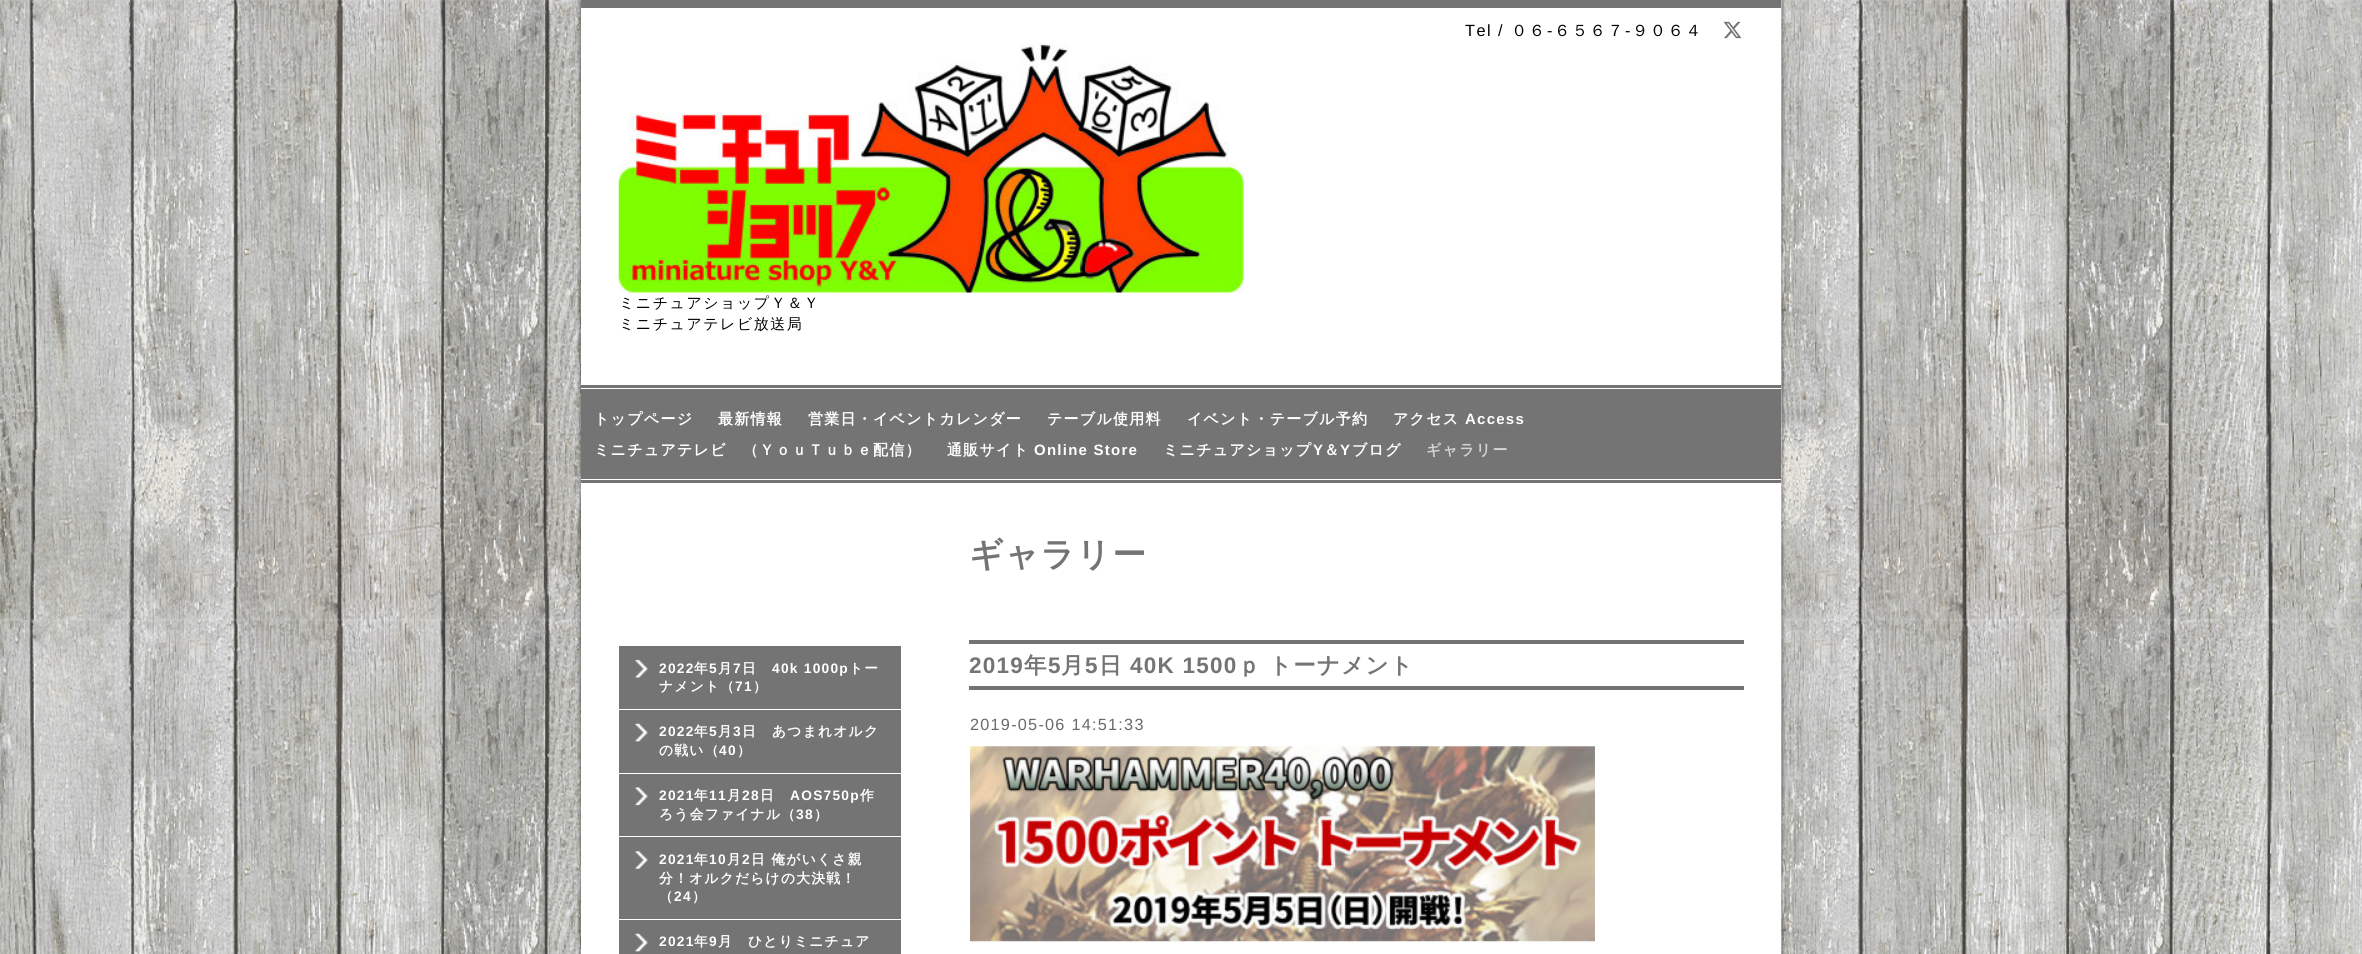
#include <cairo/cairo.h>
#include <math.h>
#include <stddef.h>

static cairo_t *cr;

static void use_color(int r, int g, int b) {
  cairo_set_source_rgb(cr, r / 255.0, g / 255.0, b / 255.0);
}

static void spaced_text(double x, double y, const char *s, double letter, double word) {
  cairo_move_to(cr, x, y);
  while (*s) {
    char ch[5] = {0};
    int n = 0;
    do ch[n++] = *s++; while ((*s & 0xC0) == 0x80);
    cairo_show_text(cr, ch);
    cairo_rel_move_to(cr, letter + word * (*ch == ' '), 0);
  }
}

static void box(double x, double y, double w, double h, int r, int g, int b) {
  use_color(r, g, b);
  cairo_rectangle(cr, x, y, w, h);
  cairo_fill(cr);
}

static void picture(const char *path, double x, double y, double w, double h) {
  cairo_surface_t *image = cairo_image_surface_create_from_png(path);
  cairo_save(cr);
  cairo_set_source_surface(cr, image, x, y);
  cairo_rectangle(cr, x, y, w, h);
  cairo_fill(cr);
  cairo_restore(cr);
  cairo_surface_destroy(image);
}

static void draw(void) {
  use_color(255, 255, 255);
  cairo_paint(cr);
  picture("img_01.png", 0, 0, 2362, 954);
  picture("img_02.png", 577, 0, 1209, 954);
  box(581, 8, 1, 946, 255, 255, 255);
  box(581, 0, 1200, 8, 116, 116, 116);
  picture("img_03.png", 1723, 21, 19, 18);
  picture("img_04.png", 618, 43, 626, 250);
  box(581, 385, 1200, 98, 116, 116, 116);
  box(581, 388, 1200, 1, 255, 255, 255);
  box(581, 479, 1200, 1, 255, 255, 255);
  box(969, 640, 775, 4, 116, 116, 116);
  box(969, 686, 775, 4, 116, 116, 116);
  picture("img_05.png", 970, 746, 625, 196);
  box(619, 646, 282, 63, 116, 116, 116);
  picture("img_06.png", 635, 659, 13, 19);
  box(619, 710, 282, 63, 116, 116, 116);
  picture("img_07.png", 635, 723, 13, 19);
  box(619, 774, 282, 145, 116, 116, 116);
  box(619, 836, 282, 1, 255, 255, 255);
  picture("img_08.png", 635, 787, 13, 19);
  picture("img_09.png", 635, 851, 13, 18);
  box(619, 920, 282, 34, 116, 116, 116);
  picture("img_07.png", 635, 933, 13, 19);
  cairo_select_font_face(cr, "Liberation Sans", CAIRO_FONT_SLANT_NORMAL, CAIRO_FONT_WEIGHT_NORMAL);
  cairo_set_font_size(cr, 16.25);
  use_color(0, 0, 0);
  spaced_text(1465, 36, "Tel /", 1.5, 0);
  cairo_select_font_face(cr, "WenQuanYi Zen Hei Medium", CAIRO_FONT_SLANT_NORMAL, CAIRO_FONT_WEIGHT_NORMAL);
  spaced_text(1511, 36, "０６", 1.5, 0);
  cairo_select_font_face(cr, "Liberation Sans", CAIRO_FONT_SLANT_NORMAL, CAIRO_FONT_WEIGHT_NORMAL);
  spaced_text(1547, 36, "-", 1.5, 0);
  cairo_select_font_face(cr, "WenQuanYi Zen Hei Medium", CAIRO_FONT_SLANT_NORMAL, CAIRO_FONT_WEIGHT_NORMAL);
  spaced_text(1554, 36, "６５６７", 1.5, 0);
  cairo_select_font_face(cr, "Liberation Sans", CAIRO_FONT_SLANT_NORMAL, CAIRO_FONT_WEIGHT_NORMAL);
  spaced_text(1625, 36, "-", 1.5, 0);
  cairo_select_font_face(cr, "WenQuanYi Zen Hei Medium", CAIRO_FONT_SLANT_NORMAL, CAIRO_FONT_WEIGHT_NORMAL);
  spaced_text(1632, 36, "９０６４", 1.5, 0);
  cairo_set_font_size(cr, 15);
  spaced_text(619, 308, "ミニチュアショップＹ＆Ｙ", 1.5, 0);
  spaced_text(619, 329, "ミニチュアテレビ放送局", 1.5, 0);
  cairo_select_font_face(cr, "WenQuanYi Zen Hei", CAIRO_FONT_SLANT_NORMAL, CAIRO_FONT_WEIGHT_BOLD);
  use_color(255, 255, 255);
  spaced_text(594, 424, "トップページ", 1.25, 0);
  spaced_text(718, 424, "最新情報", 1.25, 0);
  spaced_text(808, 424, "営業日・イベントカレンダー", 1.25, 0);
  spaced_text(1047, 424, "テーブル使用料", 1.25, 0);
  spaced_text(1187, 424, "イベント・テーブル予約", 1.25, 0);
  spaced_text(1393, 424, "アクセス", 1.25, 0);
  cairo_select_font_face(cr, "Liberation Sans", CAIRO_FONT_SLANT_NORMAL, CAIRO_FONT_WEIGHT_BOLD);
  spaced_text(1465, 424, "Access", 1.25, 0);
  cairo_select_font_face(cr, "WenQuanYi Zen Hei", CAIRO_FONT_SLANT_NORMAL, CAIRO_FONT_WEIGHT_BOLD);
  spaced_text(594, 455, "ミニチュアテレビ　（ＹｏｕＴｕｂｅ配信）", 1.25, 0);
  spaced_text(947, 455, "通販サイト", 1.25, 0);
  cairo_select_font_face(cr, "Liberation Sans", CAIRO_FONT_SLANT_NORMAL, CAIRO_FONT_WEIGHT_BOLD);
  spaced_text(1034, 455, "Online Store", 1.25, 0);
  cairo_select_font_face(cr, "WenQuanYi Zen Hei", CAIRO_FONT_SLANT_NORMAL, CAIRO_FONT_WEIGHT_BOLD);
  spaced_text(1163, 455, "ミニチュアショップ", 1.25, 0);
  cairo_select_font_face(cr, "Liberation Sans", CAIRO_FONT_SLANT_NORMAL, CAIRO_FONT_WEIGHT_BOLD);
  spaced_text(1313, 455, "Y", 1.25, 0);
  cairo_select_font_face(cr, "WenQuanYi Zen Hei", CAIRO_FONT_SLANT_NORMAL, CAIRO_FONT_WEIGHT_BOLD);
  spaced_text(1324, 455, "＆", 1.25, 0);
  cairo_select_font_face(cr, "Liberation Sans", CAIRO_FONT_SLANT_NORMAL, CAIRO_FONT_WEIGHT_BOLD);
  spaced_text(1340, 455, "Y", 1.25, 0);
  cairo_select_font_face(cr, "WenQuanYi Zen Hei", CAIRO_FONT_SLANT_NORMAL, CAIRO_FONT_WEIGHT_BOLD);
  spaced_text(1352, 455, "ブログ", 1.25, 0);
  use_color(213, 213, 213);
  spaced_text(1426, 455, "ギャラリー", 1.25, 0);
  cairo_set_font_size(cr, 33.75);
  use_color(116, 116, 116);
  spaced_text(969, 566, "ギャラリー", 1.25, 0);
  cairo_select_font_face(cr, "Liberation Sans", CAIRO_FONT_SLANT_NORMAL, CAIRO_FONT_WEIGHT_BOLD);
  cairo_set_font_size(cr, 22.5);
  spaced_text(969, 673, "2019", 1.25, 0);
  cairo_select_font_face(cr, "WenQuanYi Zen Hei", CAIRO_FONT_SLANT_NORMAL, CAIRO_FONT_WEIGHT_BOLD);
  spaced_text(1024, 673, "年", 1.25, 0);
  cairo_select_font_face(cr, "Liberation Sans", CAIRO_FONT_SLANT_NORMAL, CAIRO_FONT_WEIGHT_BOLD);
  spaced_text(1048, 673, "5", 1.25, 0);
  cairo_select_font_face(cr, "WenQuanYi Zen Hei", CAIRO_FONT_SLANT_NORMAL, CAIRO_FONT_WEIGHT_BOLD);
  spaced_text(1061, 673, "月", 1.25, 0);
  cairo_select_font_face(cr, "Liberation Sans", CAIRO_FONT_SLANT_NORMAL, CAIRO_FONT_WEIGHT_BOLD);
  spaced_text(1085, 673, "5", 1.25, 0);
  cairo_select_font_face(cr, "WenQuanYi Zen Hei", CAIRO_FONT_SLANT_NORMAL, CAIRO_FONT_WEIGHT_BOLD);
  spaced_text(1099, 673, "日", 1.25, 0);
  cairo_select_font_face(cr, "Liberation Sans", CAIRO_FONT_SLANT_NORMAL, CAIRO_FONT_WEIGHT_BOLD);
  spaced_text(1130, 673, "40K 1500", 1.25, 0);
  cairo_select_font_face(cr, "WenQuanYi Zen Hei", CAIRO_FONT_SLANT_NORMAL, CAIRO_FONT_WEIGHT_BOLD);
  spaced_text(1238, 673, "ｐ", 1.25, 0);
  spaced_text(1269, 673, "トーナメント", 1.25, 0);
  cairo_select_font_face(cr, "Liberation Sans", CAIRO_FONT_SLANT_NORMAL, CAIRO_FONT_WEIGHT_NORMAL);
  cairo_set_font_size(cr, 16.25);
  use_color(106, 106, 106);
  spaced_text(970, 730, "2019-05-06 14:51:33", 1.25, 0);
  cairo_select_font_face(cr, "Liberation Sans", CAIRO_FONT_SLANT_NORMAL, CAIRO_FONT_WEIGHT_BOLD);
  cairo_set_font_size(cr, 13.75);
  use_color(255, 255, 255);
  spaced_text(659, 673, "2022", 1.25, 0);
  cairo_select_font_face(cr, "WenQuanYi Zen Hei", CAIRO_FONT_SLANT_NORMAL, CAIRO_FONT_WEIGHT_BOLD);
  spaced_text(694, 673, "年", 1.25, 0);
  cairo_select_font_face(cr, "Liberation Sans", CAIRO_FONT_SLANT_NORMAL, CAIRO_FONT_WEIGHT_BOLD);
  spaced_text(709, 673, "5", 1.25, 0);
  cairo_select_font_face(cr, "WenQuanYi Zen Hei", CAIRO_FONT_SLANT_NORMAL, CAIRO_FONT_WEIGHT_BOLD);
  spaced_text(718, 673, "月", 1.25, 0);
  cairo_select_font_face(cr, "Liberation Sans", CAIRO_FONT_SLANT_NORMAL, CAIRO_FONT_WEIGHT_BOLD);
  spaced_text(733, 673, "7", 1.25, 0);
  cairo_select_font_face(cr, "WenQuanYi Zen Hei", CAIRO_FONT_SLANT_NORMAL, CAIRO_FONT_WEIGHT_BOLD);
  spaced_text(742, 673, "日", 1.25, 0);
  cairo_select_font_face(cr, "Liberation Sans", CAIRO_FONT_SLANT_NORMAL, CAIRO_FONT_WEIGHT_BOLD);
  spaced_text(772, 673, "40k 1000p", 1.25, 0);
  cairo_select_font_face(cr, "WenQuanYi Zen Hei", CAIRO_FONT_SLANT_NORMAL, CAIRO_FONT_WEIGHT_BOLD);
  spaced_text(849, 673, "トー", 1.25, 0);
  spaced_text(659, 691, "ナメント（", 1.25, 0);
  cairo_select_font_face(cr, "Liberation Sans", CAIRO_FONT_SLANT_NORMAL, CAIRO_FONT_WEIGHT_BOLD);
  spaced_text(735, 691, "71", 1.25, 0);
  cairo_select_font_face(cr, "WenQuanYi Zen Hei", CAIRO_FONT_SLANT_NORMAL, CAIRO_FONT_WEIGHT_BOLD);
  spaced_text(753, 691, "）", 1.25, 0);
  cairo_select_font_face(cr, "Liberation Sans", CAIRO_FONT_SLANT_NORMAL, CAIRO_FONT_WEIGHT_BOLD);
  spaced_text(659, 736, "2022", 1.25, 0);
  cairo_select_font_face(cr, "WenQuanYi Zen Hei", CAIRO_FONT_SLANT_NORMAL, CAIRO_FONT_WEIGHT_BOLD);
  spaced_text(694, 736, "年", 1.25, 0);
  cairo_select_font_face(cr, "Liberation Sans", CAIRO_FONT_SLANT_NORMAL, CAIRO_FONT_WEIGHT_BOLD);
  spaced_text(709, 736, "5", 1.25, 0);
  cairo_select_font_face(cr, "WenQuanYi Zen Hei", CAIRO_FONT_SLANT_NORMAL, CAIRO_FONT_WEIGHT_BOLD);
  spaced_text(718, 736, "月", 1.25, 0);
  cairo_select_font_face(cr, "Liberation Sans", CAIRO_FONT_SLANT_NORMAL, CAIRO_FONT_WEIGHT_BOLD);
  spaced_text(733, 736, "3", 1.25, 0);
  cairo_select_font_face(cr, "WenQuanYi Zen Hei", CAIRO_FONT_SLANT_NORMAL, CAIRO_FONT_WEIGHT_BOLD);
  spaced_text(742, 736, "日　あつまれオルク", 1.25, 0);
  spaced_text(659, 755, "の戦い（", 1.25, 0);
  cairo_select_font_face(cr, "Liberation Sans", CAIRO_FONT_SLANT_NORMAL, CAIRO_FONT_WEIGHT_BOLD);
  spaced_text(719, 755, "40", 1.25, 0);
  cairo_select_font_face(cr, "WenQuanYi Zen Hei", CAIRO_FONT_SLANT_NORMAL, CAIRO_FONT_WEIGHT_BOLD);
  spaced_text(737, 755, "）", 1.25, 0);
  cairo_select_font_face(cr, "Liberation Sans", CAIRO_FONT_SLANT_NORMAL, CAIRO_FONT_WEIGHT_BOLD);
  spaced_text(659, 800, "2021", 1.25, 0);
  cairo_select_font_face(cr, "WenQuanYi Zen Hei", CAIRO_FONT_SLANT_NORMAL, CAIRO_FONT_WEIGHT_BOLD);
  spaced_text(694, 800, "年", 1.25, 0);
  cairo_select_font_face(cr, "Liberation Sans", CAIRO_FONT_SLANT_NORMAL, CAIRO_FONT_WEIGHT_BOLD);
  spaced_text(709, 800, "11", 1.25, 0);
  cairo_select_font_face(cr, "WenQuanYi Zen Hei", CAIRO_FONT_SLANT_NORMAL, CAIRO_FONT_WEIGHT_BOLD);
  spaced_text(727, 800, "月", 1.25, 0);
  cairo_select_font_face(cr, "Liberation Sans", CAIRO_FONT_SLANT_NORMAL, CAIRO_FONT_WEIGHT_BOLD);
  spaced_text(742, 800, "28", 1.25, 0);
  cairo_select_font_face(cr, "WenQuanYi Zen Hei", CAIRO_FONT_SLANT_NORMAL, CAIRO_FONT_WEIGHT_BOLD);
  spaced_text(760, 800, "日", 1.25, 0);
  cairo_select_font_face(cr, "Liberation Sans", CAIRO_FONT_SLANT_NORMAL, CAIRO_FONT_WEIGHT_BOLD);
  spaced_text(790, 800, "AOS750p", 1.25, 0);
  cairo_select_font_face(cr, "WenQuanYi Zen Hei", CAIRO_FONT_SLANT_NORMAL, CAIRO_FONT_WEIGHT_BOLD);
  spaced_text(860, 800, "作", 1.25, 0);
  spaced_text(659, 819, "ろう会ファイナル（", 1.25, 0);
  cairo_select_font_face(cr, "Liberation Sans", CAIRO_FONT_SLANT_NORMAL, CAIRO_FONT_WEIGHT_BOLD);
  spaced_text(796, 819, "38", 1.25, 0);
  cairo_select_font_face(cr, "WenQuanYi Zen Hei", CAIRO_FONT_SLANT_NORMAL, CAIRO_FONT_WEIGHT_BOLD);
  spaced_text(814, 819, "）", 1.25, 0);
  cairo_select_font_face(cr, "Liberation Sans", CAIRO_FONT_SLANT_NORMAL, CAIRO_FONT_WEIGHT_BOLD);
  spaced_text(659, 864, "2021", 1.25, 0);
  cairo_select_font_face(cr, "WenQuanYi Zen Hei", CAIRO_FONT_SLANT_NORMAL, CAIRO_FONT_WEIGHT_BOLD);
  spaced_text(694, 864, "年", 1.25, 0);
  cairo_select_font_face(cr, "Liberation Sans", CAIRO_FONT_SLANT_NORMAL, CAIRO_FONT_WEIGHT_BOLD);
  spaced_text(709, 864, "10", 1.25, 0);
  cairo_select_font_face(cr, "WenQuanYi Zen Hei", CAIRO_FONT_SLANT_NORMAL, CAIRO_FONT_WEIGHT_BOLD);
  spaced_text(727, 864, "月", 1.25, 0);
  cairo_select_font_face(cr, "Liberation Sans", CAIRO_FONT_SLANT_NORMAL, CAIRO_FONT_WEIGHT_BOLD);
  spaced_text(742, 864, "2", 1.25, 0);
  cairo_select_font_face(cr, "WenQuanYi Zen Hei", CAIRO_FONT_SLANT_NORMAL, CAIRO_FONT_WEIGHT_BOLD);
  spaced_text(751, 864, "日 俺がいくさ親", 1.25, 0);
  spaced_text(659, 883, "分！オルクだらけの大決戦！", 1.25, 0);
  spaced_text(659, 901, "（", 1.25, 0);
  cairo_select_font_face(cr, "Liberation Sans", CAIRO_FONT_SLANT_NORMAL, CAIRO_FONT_WEIGHT_BOLD);
  spaced_text(674, 901, "24", 1.25, 0);
  cairo_select_font_face(cr, "WenQuanYi Zen Hei", CAIRO_FONT_SLANT_NORMAL, CAIRO_FONT_WEIGHT_BOLD);
  spaced_text(692, 901, "）", 1.25, 0);
  cairo_select_font_face(cr, "Liberation Sans", CAIRO_FONT_SLANT_NORMAL, CAIRO_FONT_WEIGHT_BOLD);
  spaced_text(659, 946, "2021", 1.25, 0);
  cairo_select_font_face(cr, "WenQuanYi Zen Hei", CAIRO_FONT_SLANT_NORMAL, CAIRO_FONT_WEIGHT_BOLD);
  spaced_text(694, 946, "年", 1.25, 0);
  cairo_select_font_face(cr, "Liberation Sans", CAIRO_FONT_SLANT_NORMAL, CAIRO_FONT_WEIGHT_BOLD);
  spaced_text(709, 946, "9", 1.25, 0);
  cairo_select_font_face(cr, "WenQuanYi Zen Hei", CAIRO_FONT_SLANT_NORMAL, CAIRO_FONT_WEIGHT_BOLD);
  spaced_text(718, 946, "月　ひとりミニチュア", 1.25, 0);
}

int main(void) {
  cairo_surface_t *surface = cairo_image_surface_create(CAIRO_FORMAT_RGB24, 2362, 954);
  cr = cairo_create(surface);
  cairo_font_options_t *options = cairo_font_options_create();
  cairo_font_options_set_hint_metrics(options, CAIRO_HINT_METRICS_OFF);
  cairo_font_options_set_hint_style(options, CAIRO_HINT_STYLE_NONE);
  cairo_set_font_options(cr, options);
  cairo_set_miter_limit(cr, 4);
  draw();
  cairo_surface_write_to_png(surface, "out.png");
  cairo_font_options_destroy(options);
  cairo_destroy(cr);
  cairo_surface_destroy(surface);
  return 0;
}
